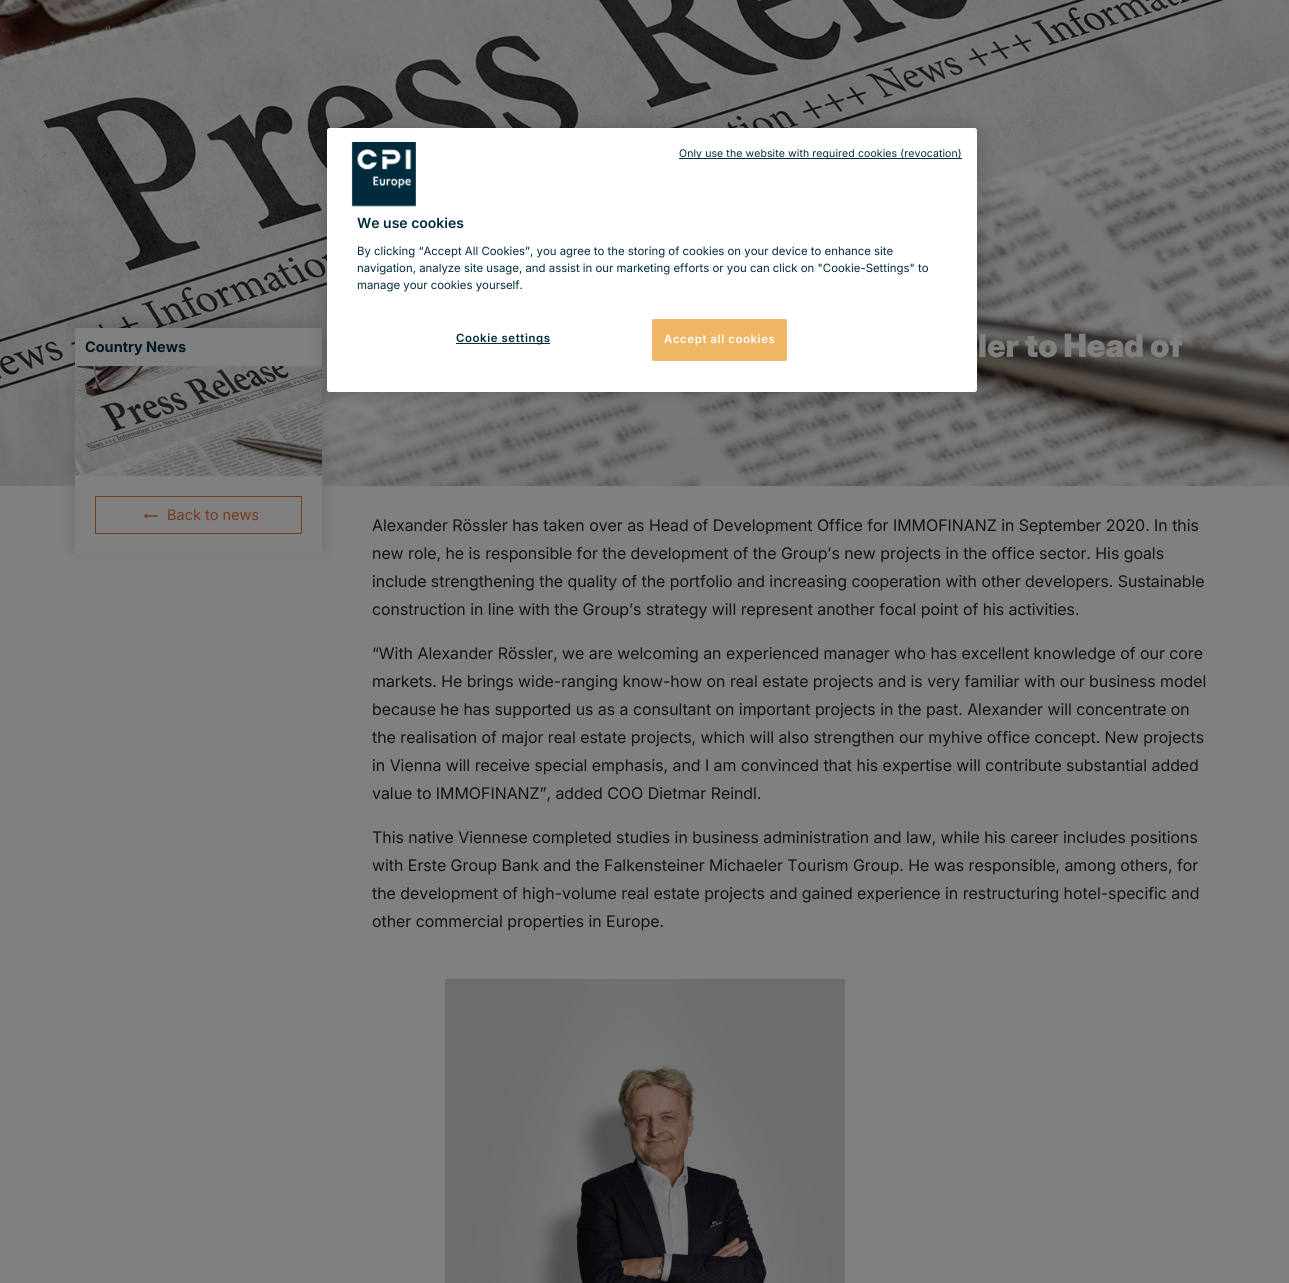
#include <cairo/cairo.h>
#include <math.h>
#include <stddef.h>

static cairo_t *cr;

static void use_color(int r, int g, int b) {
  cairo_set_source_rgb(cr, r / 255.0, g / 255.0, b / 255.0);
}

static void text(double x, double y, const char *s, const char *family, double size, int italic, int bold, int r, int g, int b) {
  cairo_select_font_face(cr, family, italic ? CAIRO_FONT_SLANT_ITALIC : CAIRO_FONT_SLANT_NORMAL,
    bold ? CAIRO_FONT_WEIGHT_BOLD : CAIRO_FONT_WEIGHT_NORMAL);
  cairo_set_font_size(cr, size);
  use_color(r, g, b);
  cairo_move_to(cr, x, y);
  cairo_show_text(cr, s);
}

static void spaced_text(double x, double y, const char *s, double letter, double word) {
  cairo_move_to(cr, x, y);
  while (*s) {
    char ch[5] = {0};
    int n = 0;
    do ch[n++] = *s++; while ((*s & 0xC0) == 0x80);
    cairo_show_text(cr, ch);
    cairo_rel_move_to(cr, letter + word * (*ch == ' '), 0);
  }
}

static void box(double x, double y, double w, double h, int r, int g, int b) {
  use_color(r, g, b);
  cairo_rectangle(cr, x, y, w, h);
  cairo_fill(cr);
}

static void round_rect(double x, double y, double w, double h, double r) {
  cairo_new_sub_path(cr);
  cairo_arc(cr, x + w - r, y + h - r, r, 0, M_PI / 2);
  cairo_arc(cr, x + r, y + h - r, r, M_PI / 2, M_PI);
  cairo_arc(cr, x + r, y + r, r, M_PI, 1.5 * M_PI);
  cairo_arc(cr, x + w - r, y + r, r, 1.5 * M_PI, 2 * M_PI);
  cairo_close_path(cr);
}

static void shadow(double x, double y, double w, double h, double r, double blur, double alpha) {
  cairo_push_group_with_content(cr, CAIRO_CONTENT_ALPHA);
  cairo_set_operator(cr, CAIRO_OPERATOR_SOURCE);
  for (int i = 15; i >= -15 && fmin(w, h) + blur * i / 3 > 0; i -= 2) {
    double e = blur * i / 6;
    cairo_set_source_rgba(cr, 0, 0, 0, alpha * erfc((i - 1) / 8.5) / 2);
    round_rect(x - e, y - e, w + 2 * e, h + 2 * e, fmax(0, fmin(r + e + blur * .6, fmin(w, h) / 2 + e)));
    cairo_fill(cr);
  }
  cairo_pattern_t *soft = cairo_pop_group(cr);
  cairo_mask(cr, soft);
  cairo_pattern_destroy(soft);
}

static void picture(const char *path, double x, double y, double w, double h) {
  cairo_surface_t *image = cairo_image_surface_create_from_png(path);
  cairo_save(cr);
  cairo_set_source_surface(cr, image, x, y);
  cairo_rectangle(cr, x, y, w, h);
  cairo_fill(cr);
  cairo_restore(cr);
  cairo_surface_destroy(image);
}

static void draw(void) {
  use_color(128, 128, 128);
  cairo_paint(cr);
  picture("img_02.png", 0, 0, 1289, 486);
  use_color(0, 0, 0);
  shadow(75, 323, 247, 226, 0, 7.5, 0.15);
  box(75, 328, 247, 38, 128, 128, 128);
  picture("img_03.png", 75, 366, 247, 110);
  use_color(0, 0, 0);
  shadow(327, 128, 650, 264, 2.5, 9, 0.2);
  use_color(255, 255, 255);
  round_rect(327, 128, 650, 264, 2.5);
  cairo_fill(cr);
  box(679, 158, 283, 1, 0, 43, 60);
  picture("img_01.png", 351, 142, 65, 65);
  box(456, 343, 94, 1, 0, 43, 60);
  use_color(239, 182, 102);
  round_rect(652.5, 319.5, 134, 41, 1.5);
  cairo_fill_preserve(cr);
  cairo_set_line_width(cr, 1);
  cairo_stroke(cr);
  box(75, 476, 247, 78, 128, 128, 128);
  cairo_rectangle(cr, 95.5, 496.5, 206, 37);
  use_color(119, 58, 30);
  cairo_stroke(cr);
  picture("img_04.png", 144, 513, 14, 6);
  picture("img_05.png", 445, 979, 400, 304);
  cairo_select_font_face(cr, "Inter", CAIRO_FONT_SLANT_NORMAL, CAIRO_FONT_WEIGHT_NORMAL);
  cairo_set_font_size(cr, 10.5);
  use_color(0, 43, 60);
  spaced_text(679, 157, "Only use the website with required cookies (revocation)", 0.1, 0);
  text(357, 228, "We use cookies", "Inter SemiBold", 14, 0, 0, 0, 43, 60);
  text(357, 255, "By clicking “Accept All Cookies”, you agree to the storing of cookies on your device to enhance site", "Inter", 11.38, 0, 0, 0, 43, 60);
  text(357, 272, "navigation, analyze site usage, and assist in our marketing efforts or you can click on \"Cookie-Settings\" to", "Inter", 11.38, 0, 0, 0, 43, 60);
  text(357, 289, "manage your cookies yourself.", "Inter", 11.38, 0, 0, 0, 43, 60);
  cairo_select_font_face(cr, "Inter SemiBold", CAIRO_FONT_SLANT_NORMAL, CAIRO_FONT_WEIGHT_NORMAL);
  spaced_text(456, 342, "Cookie settings", 0.6, 0);
  use_color(255, 255, 255);
  spaced_text(664, 343, "Accept all cookies", 0.6, 0);
  text(85, 352, "Country News", "Inter", 14.5, 0, 1, 0, 22, 30);
  text(167, 520, "Back to news", "Inter", 14.5, 0, 0, 119, 58, 30);
  text(978, 357, "ler to Head of", "Inter Black", 32, 0, 0, 128, 128, 128);
  text(372, 531, "Alexander Rössler has taken over as Head of Development Office for IMMOFINANZ in September 2020. In this", "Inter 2", 16, 0, 0, 17, 19, 21);
  text(372, 559, "new role, he is responsible for the development of the Group’s new projects in the office sector. His goals", "Inter 2", 16, 0, 0, 17, 19, 21);
  text(372, 587, "include strengthening the quality of the portfolio and increasing cooperation with other developers. Sustainable", "Inter 2", 16, 0, 0, 17, 19, 21);
  text(372, 615, "construction in line with the Group’s strategy will represent another focal point of his activities.", "Inter 2", 16, 0, 0, 17, 19, 21);
  text(372, 659, "“With Alexander Rössler, we are welcoming an experienced manager who has excellent knowledge of our core", "Inter 2", 16, 0, 0, 17, 19, 21);
  text(372, 687, "markets. He brings wide-ranging know-how on real estate projects and is very familiar with our business model", "Inter 2", 16, 0, 0, 17, 19, 21);
  text(372, 715, "because he has supported us as a consultant on important projects in the past. Alexander will concentrate on", "Inter 2", 16, 0, 0, 17, 19, 21);
  text(372, 743, "the realisation of major real estate projects, which will also strengthen our myhive office concept. New projects", "Inter 2", 16, 0, 0, 17, 19, 21);
  text(372, 771, "in Vienna will receive special emphasis, and I am convinced that his expertise will contribute substantial added", "Inter 2", 16, 0, 0, 17, 19, 21);
  text(372, 799, "value to IMMOFINANZ”, added COO Dietmar Reindl.", "Inter 2", 16, 0, 0, 17, 19, 21);
  text(372, 843, "This native Viennese completed studies in business administration and law, while his career includes positions", "Inter 2", 16, 0, 0, 17, 19, 21);
  text(372, 871, "with Erste Group Bank and the Falkensteiner Michaeler Tourism Group. He was responsible, among others, for", "Inter 2", 16, 0, 0, 17, 19, 21);
  text(372, 899, "the development of high-volume real estate projects and gained experience in restructuring hotel-specific and", "Inter 2", 16, 0, 0, 17, 19, 21);
  text(372, 927, "other commercial properties in Europe.", "Inter 2", 16, 0, 0, 17, 19, 21);
}

int main(void) {
  cairo_surface_t *surface = cairo_image_surface_create(CAIRO_FORMAT_RGB24, 1289, 1283);
  cr = cairo_create(surface);
  cairo_font_options_t *options = cairo_font_options_create();
  cairo_font_options_set_hint_metrics(options, CAIRO_HINT_METRICS_OFF);
  cairo_font_options_set_hint_style(options, CAIRO_HINT_STYLE_NONE);
  cairo_set_font_options(cr, options);
  cairo_set_miter_limit(cr, 4);
  draw();
  cairo_surface_write_to_png(surface, "out.png");
  cairo_font_options_destroy(options);
  cairo_destroy(cr);
  cairo_surface_destroy(surface);
  return 0;
}
